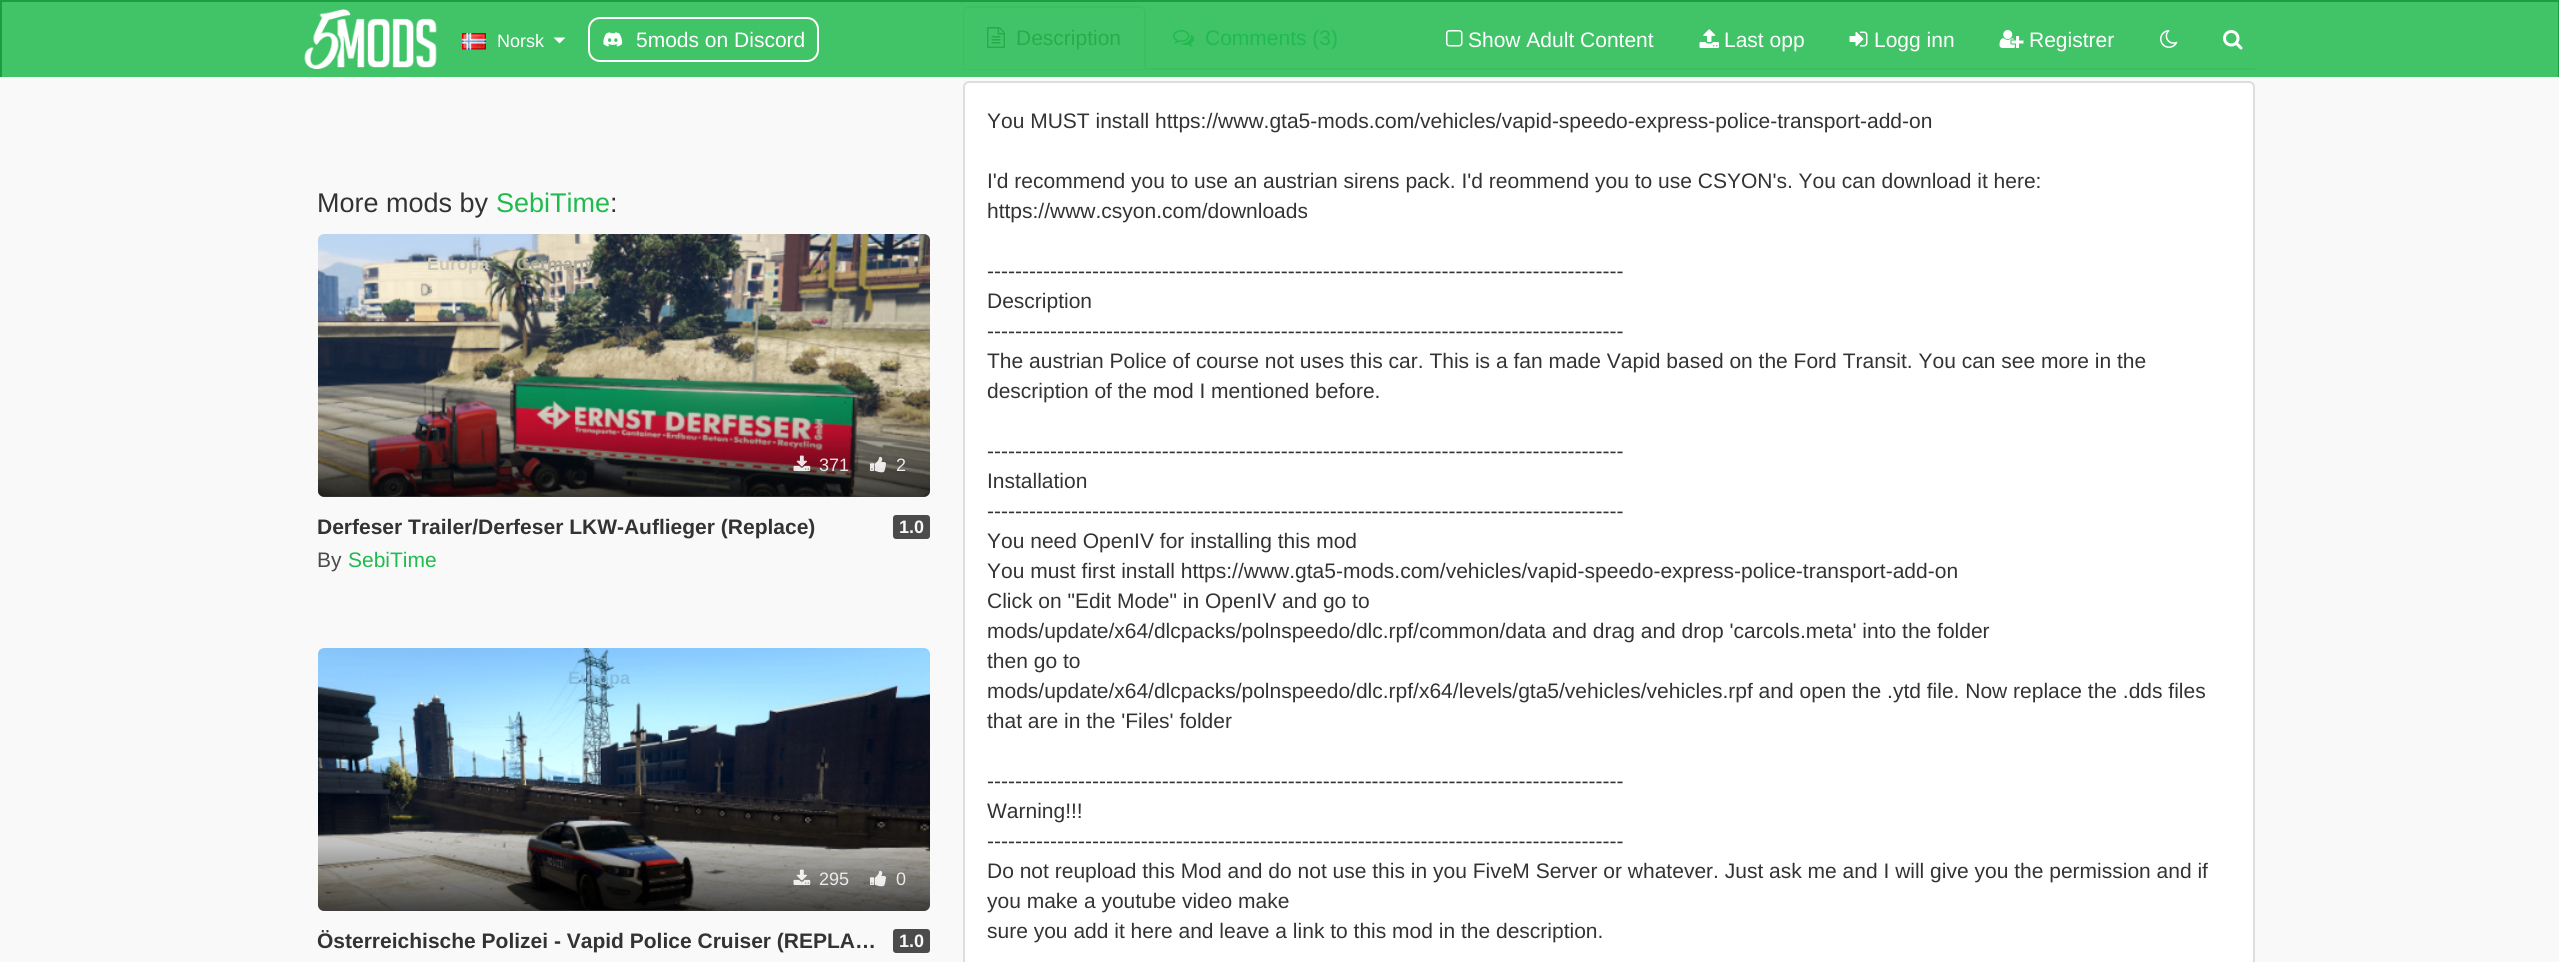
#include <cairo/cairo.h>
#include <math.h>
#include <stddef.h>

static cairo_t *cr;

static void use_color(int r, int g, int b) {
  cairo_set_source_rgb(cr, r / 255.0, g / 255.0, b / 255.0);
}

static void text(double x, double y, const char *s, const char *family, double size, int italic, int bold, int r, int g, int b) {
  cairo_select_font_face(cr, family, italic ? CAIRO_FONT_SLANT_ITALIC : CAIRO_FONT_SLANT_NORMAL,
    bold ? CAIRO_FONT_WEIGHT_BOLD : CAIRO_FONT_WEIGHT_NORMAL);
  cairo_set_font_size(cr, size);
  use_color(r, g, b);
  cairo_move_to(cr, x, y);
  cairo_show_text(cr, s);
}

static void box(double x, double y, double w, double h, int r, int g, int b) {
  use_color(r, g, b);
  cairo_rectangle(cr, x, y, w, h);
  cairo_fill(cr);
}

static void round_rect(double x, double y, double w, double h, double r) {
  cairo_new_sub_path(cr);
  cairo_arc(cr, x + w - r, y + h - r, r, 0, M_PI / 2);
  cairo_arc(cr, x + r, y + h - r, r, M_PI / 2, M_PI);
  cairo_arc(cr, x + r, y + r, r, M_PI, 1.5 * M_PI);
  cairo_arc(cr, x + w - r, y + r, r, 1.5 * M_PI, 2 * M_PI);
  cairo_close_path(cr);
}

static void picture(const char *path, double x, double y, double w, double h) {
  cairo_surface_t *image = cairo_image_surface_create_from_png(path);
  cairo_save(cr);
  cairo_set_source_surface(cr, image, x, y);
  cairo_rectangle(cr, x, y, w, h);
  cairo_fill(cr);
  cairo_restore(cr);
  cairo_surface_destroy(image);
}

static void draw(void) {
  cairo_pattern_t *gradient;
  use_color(249, 249, 249);
  cairo_paint(cr);
  box(2, 2, 2556, 75, 65, 195, 104);
  picture("img_01.png", 318, 234, 612, 263);
  gradient = cairo_pattern_create_linear(624, 234, 624, 497);
  cairo_pattern_add_color_stop_rgba(gradient, 0.5, 0, 0, 0, 0);
  cairo_pattern_add_color_stop_rgba(gradient, 0.75, 0, 0, 0, 0.25);
  cairo_pattern_add_color_stop_rgba(gradient, 1, 0, 0, 0, 0.75);
  cairo_set_source(cr, gradient);
  cairo_pattern_destroy(gradient);
  round_rect(318, 234, 612, 263, 6);
  cairo_fill(cr);
  picture("img_02.png", 793, 455, 18, 16);
  picture("img_03.png", 870, 456, 16, 17);
  use_color(75, 75, 75);
  round_rect(893, 515, 37, 24, 3);
  cairo_fill(cr);
  picture("img_04.png", 318, 648, 612, 263);
  gradient = cairo_pattern_create_linear(624, 648, 624, 911);
  cairo_pattern_add_color_stop_rgba(gradient, 0.5, 0, 0, 0, 0);
  cairo_pattern_add_color_stop_rgba(gradient, 0.75, 0, 0, 0, 0.25);
  cairo_pattern_add_color_stop_rgba(gradient, 1, 0, 0, 0, 0.75);
  cairo_set_source(cr, gradient);
  cairo_pattern_destroy(gradient);
  round_rect(318, 648, 612, 263, 6);
  cairo_fill(cr);
  picture("img_05.png", 793, 869, 18, 16);
  picture("img_06.png", 870, 870, 16, 17);
  use_color(75, 75, 75);
  round_rect(893, 929, 37, 24, 3);
  cairo_fill(cr);
  box(963, 68, 1292, 2, 60, 191, 99);
  use_color(65, 196, 105);
  cairo_new_path(cr);
  cairo_move_to(cr, 969, 6);
  cairo_line_to(cr, 1140, 6);
  cairo_curve_to(cr, 1143.5, 6, 1146, 8.5, 1146, 12);
  cairo_line_to(cr, 1146, 69);
  cairo_line_to(cr, 963, 69);
  cairo_line_to(cr, 963, 12);
  cairo_curve_to(cr, 963, 8.5, 965.5, 6, 969, 6);
  cairo_close_path(cr);
  cairo_fill(cr);
  use_color(60, 191, 99);
  cairo_new_path(cr);
  cairo_move_to(cr, 969, 6);
  cairo_curve_to(cr, 968, 6, 966, 7, 965, 8);
  cairo_line_to(cr, 966, 9);
  cairo_line_to(cr, 969, 8);
  cairo_line_to(cr, 1140, 8);
  cairo_curve_to(cr, 1141, 8, 1142, 8, 1143, 9);
  cairo_line_to(cr, 1144, 8);
  cairo_curve_to(cr, 1143, 7, 1142, 6, 1140, 6);
  cairo_close_path(cr);
  cairo_fill(cr);
  cairo_new_path(cr);
  cairo_move_to(cr, 1146, 69);
  cairo_line_to(cr, 1146, 12);
  cairo_curve_to(cr, 1146, 10, 1145, 9, 1144, 8);
  cairo_line_to(cr, 1143, 9);
  cairo_line_to(cr, 1144, 12);
  cairo_line_to(cr, 1144, 67);
  cairo_close_path(cr);
  cairo_fill(cr);
  cairo_new_path(cr);
  cairo_move_to(cr, 963, 69);
  cairo_line_to(cr, 964, 68);
  cairo_line_to(cr, 964, 12);
  cairo_line_to(cr, 966, 9);
  cairo_line_to(cr, 965, 8);
  cairo_curve_to(cr, 964, 9, 963, 10, 963, 12);
  cairo_close_path(cr);
  cairo_fill(cr);
  picture("img_07.png", 987, 27, 18, 21);
  picture("img_08.png", 1173, 30, 21, 17);
  use_color(255, 255, 255);
  round_rect(964, 82, 1290, 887, 5);
  cairo_fill_preserve(cr);
  use_color(221, 221, 221);
  cairo_stroke(cr);
  box(0, 0, 2559, 2, 27, 158, 66);
  box(2558, 0, 1, 77, 27, 158, 66);
  box(0, 0, 2, 77, 27, 158, 66);
  picture("img_09.png", 304, 9, 133, 60);
  picture("img_10.png", 462, 33, 24, 17);
  use_color(255, 255, 255);
  cairo_new_path(cr);
  cairo_move_to(cr, 553.5, 37.5);
  cairo_line_to(cr, 565.5, 37.5);
  cairo_line_to(cr, 559.5, 43.5);
  cairo_close_path(cr);
  cairo_fill(cr);
  round_rect(589, 18, 229, 43, 11);
  cairo_stroke(cr);
  picture("img_11.png", 603, 32, 20, 15);
  picture("img_12.png", 1446, 30, 17, 17);
  picture("img_13.png", 1699, 29, 20, 19);
  picture("img_14.png", 1849, 31, 19, 16);
  picture("img_15.png", 1999, 30, 25, 18);
  picture("img_16.png", 2160, 30, 18, 18);
  picture("img_17.png", 2223, 30, 20, 20);
  text(317, 212, "More mods by", "Liberation Sans", 27, 0, 0, 51, 51, 51);
  text(496, 212, "SebiTime", "Liberation Sans", 27, 0, 0, 32, 186, 78);
  text(610, 212, ":", "Liberation Sans", 27, 0, 0, 51, 51, 51);
  text(427, 270, "Europa", "Liberation Sans", 18, 0, 1, 203, 199, 184);
  text(516, 270, "Germany", "Liberation Sans", 18, 0, 1, 170, 167, 151);
  text(819, 471, "371", "Liberation Sans", 18, 0, 0, 238, 228, 230);
  text(896, 471, "2", "Liberation Sans", 18, 0, 0, 235, 235, 234);
  text(317, 534, "Derfeser Trailer/Derfeser LKW-Auflieger (Replace)", "Liberation Sans", 21, 0, 1, 51, 51, 51);
  text(899, 533, "1.0", "Liberation Sans", 18, 0, 1, 249, 249, 249);
  text(317, 567, "By", "Liberation Sans", 21, 0, 0, 75, 75, 75);
  text(348, 567, "SebiTime", "Liberation Sans", 21, 0, 0, 32, 186, 78);
  text(568, 684, "Europa", "Liberation Sans", 18, 0, 1, 132, 190, 224);
  text(819, 885, "295", "Liberation Sans", 18, 0, 0, 235, 235, 234);
  text(896, 885, "0", "Liberation Sans", 18, 0, 0, 235, 235, 234);
  text(317, 948, "Österreichische Polizei - Vapid Police Cruiser (REPLA…", "Liberation Sans", 21, 0, 1, 51, 51, 51);
  text(899, 947, "1.0", "Liberation Sans", 18, 0, 1, 249, 249, 249);
  text(1016, 45, "Description", "Liberation Sans", 21, 0, 0, 40, 171, 79);
  text(1205, 45, "Comments (3)", "Liberation Sans", 21, 0, 0, 32, 186, 78);
  text(987, 128, "You MUST install https://www.gta5-mods.com/vehicles/vapid-speedo-express-police-transport-add-on", "Liberation Sans", 21, 0, 0, 51, 51, 51);
  text(987, 188, "I'd recommend you to use an austrian sirens pack. I'd reommend you to use CSYON's. You can download it here:", "Liberation Sans", 21, 0, 0, 51, 51, 51);
  text(987, 218, "https://www.csyon.com/downloads", "Liberation Sans", 21, 0, 0, 51, 51, 51);
  text(987, 278, "-------------------------------------------------------------------------------------------", "Liberation Sans", 21, 0, 0, 51, 51, 51);
  text(987, 308, "Description", "Liberation Sans", 21, 0, 0, 51, 51, 51);
  text(987, 338, "-------------------------------------------------------------------------------------------", "Liberation Sans", 21, 0, 0, 51, 51, 51);
  text(987, 368, "The austrian Police of course not uses this car. This is a fan made Vapid based on the Ford Transit. You can see more in the", "Liberation Sans", 21, 0, 0, 51, 51, 51);
  text(987, 398, "description of the mod I mentioned before.", "Liberation Sans", 21, 0, 0, 51, 51, 51);
  text(987, 458, "-------------------------------------------------------------------------------------------", "Liberation Sans", 21, 0, 0, 51, 51, 51);
  text(987, 488, "Installation", "Liberation Sans", 21, 0, 0, 51, 51, 51);
  text(987, 518, "-------------------------------------------------------------------------------------------", "Liberation Sans", 21, 0, 0, 51, 51, 51);
  text(987, 548, "You need OpenIV for installing this mod", "Liberation Sans", 21, 0, 0, 51, 51, 51);
  text(987, 578, "You must first install https://www.gta5-mods.com/vehicles/vapid-speedo-express-police-transport-add-on", "Liberation Sans", 21, 0, 0, 51, 51, 51);
  text(987, 608, "Click on \"Edit Mode\" in OpenIV and go to", "Liberation Sans", 21, 0, 0, 51, 51, 51);
  text(987, 638, "mods/update/x64/dlcpacks/polnspeedo/dlc.rpf/common/data and drag and drop 'carcols.meta' into the folder", "Liberation Sans", 21, 0, 0, 51, 51, 51);
  text(987, 668, "then go to", "Liberation Sans", 21, 0, 0, 51, 51, 51);
  text(987, 698, "mods/update/x64/dlcpacks/polnspeedo/dlc.rpf/x64/levels/gta5/vehicles/vehicles.rpf and open the .ytd file. Now replace the .dds files", "Liberation Sans", 21, 0, 0, 51, 51, 51);
  text(987, 728, "that are in the 'Files' folder", "Liberation Sans", 21, 0, 0, 51, 51, 51);
  text(987, 788, "-------------------------------------------------------------------------------------------", "Liberation Sans", 21, 0, 0, 51, 51, 51);
  text(987, 818, "Warning!!!", "Liberation Sans", 21, 0, 0, 51, 51, 51);
  text(987, 848, "-------------------------------------------------------------------------------------------", "Liberation Sans", 21, 0, 0, 51, 51, 51);
  text(987, 878, "Do not reupload this Mod and do not use this in you FiveM Server or whatever. Just ask me and I will give you the permission and if", "Liberation Sans", 21, 0, 0, 51, 51, 51);
  text(987, 908, "you make a youtube video make", "Liberation Sans", 21, 0, 0, 51, 51, 51);
  text(987, 938, "sure you add it here and leave a link to this mod in the description.", "Liberation Sans", 21, 0, 0, 51, 51, 51);
  text(497, 47, "Norsk", "Liberation Sans", 18, 0, 0, 255, 255, 255);
  text(636, 47, "5mods on Discord", "Liberation Sans", 21, 0, 0, 255, 255, 255);
  text(1468, 47, "Show Adult Content", "Liberation Sans", 21, 0, 0, 255, 255, 255);
  text(1724, 47, "Last opp", "Liberation Sans", 21, 0, 0, 255, 255, 255);
  text(1874, 47, "Logg inn", "Liberation Sans", 21, 0, 0, 255, 255, 255);
  text(2029, 47, "Registrer", "Liberation Sans", 21, 0, 0, 255, 255, 255);
}

int main(void) {
  cairo_surface_t *surface = cairo_image_surface_create(CAIRO_FORMAT_RGB24, 2559, 962);
  cr = cairo_create(surface);
  cairo_font_options_t *options = cairo_font_options_create();
  cairo_font_options_set_hint_metrics(options, CAIRO_HINT_METRICS_OFF);
  cairo_font_options_set_hint_style(options, CAIRO_HINT_STYLE_NONE);
  cairo_set_font_options(cr, options);
  cairo_set_miter_limit(cr, 4);
  draw();
  cairo_surface_write_to_png(surface, "out.png");
  cairo_font_options_destroy(options);
  cairo_destroy(cr);
  cairo_surface_destroy(surface);
  return 0;
}
